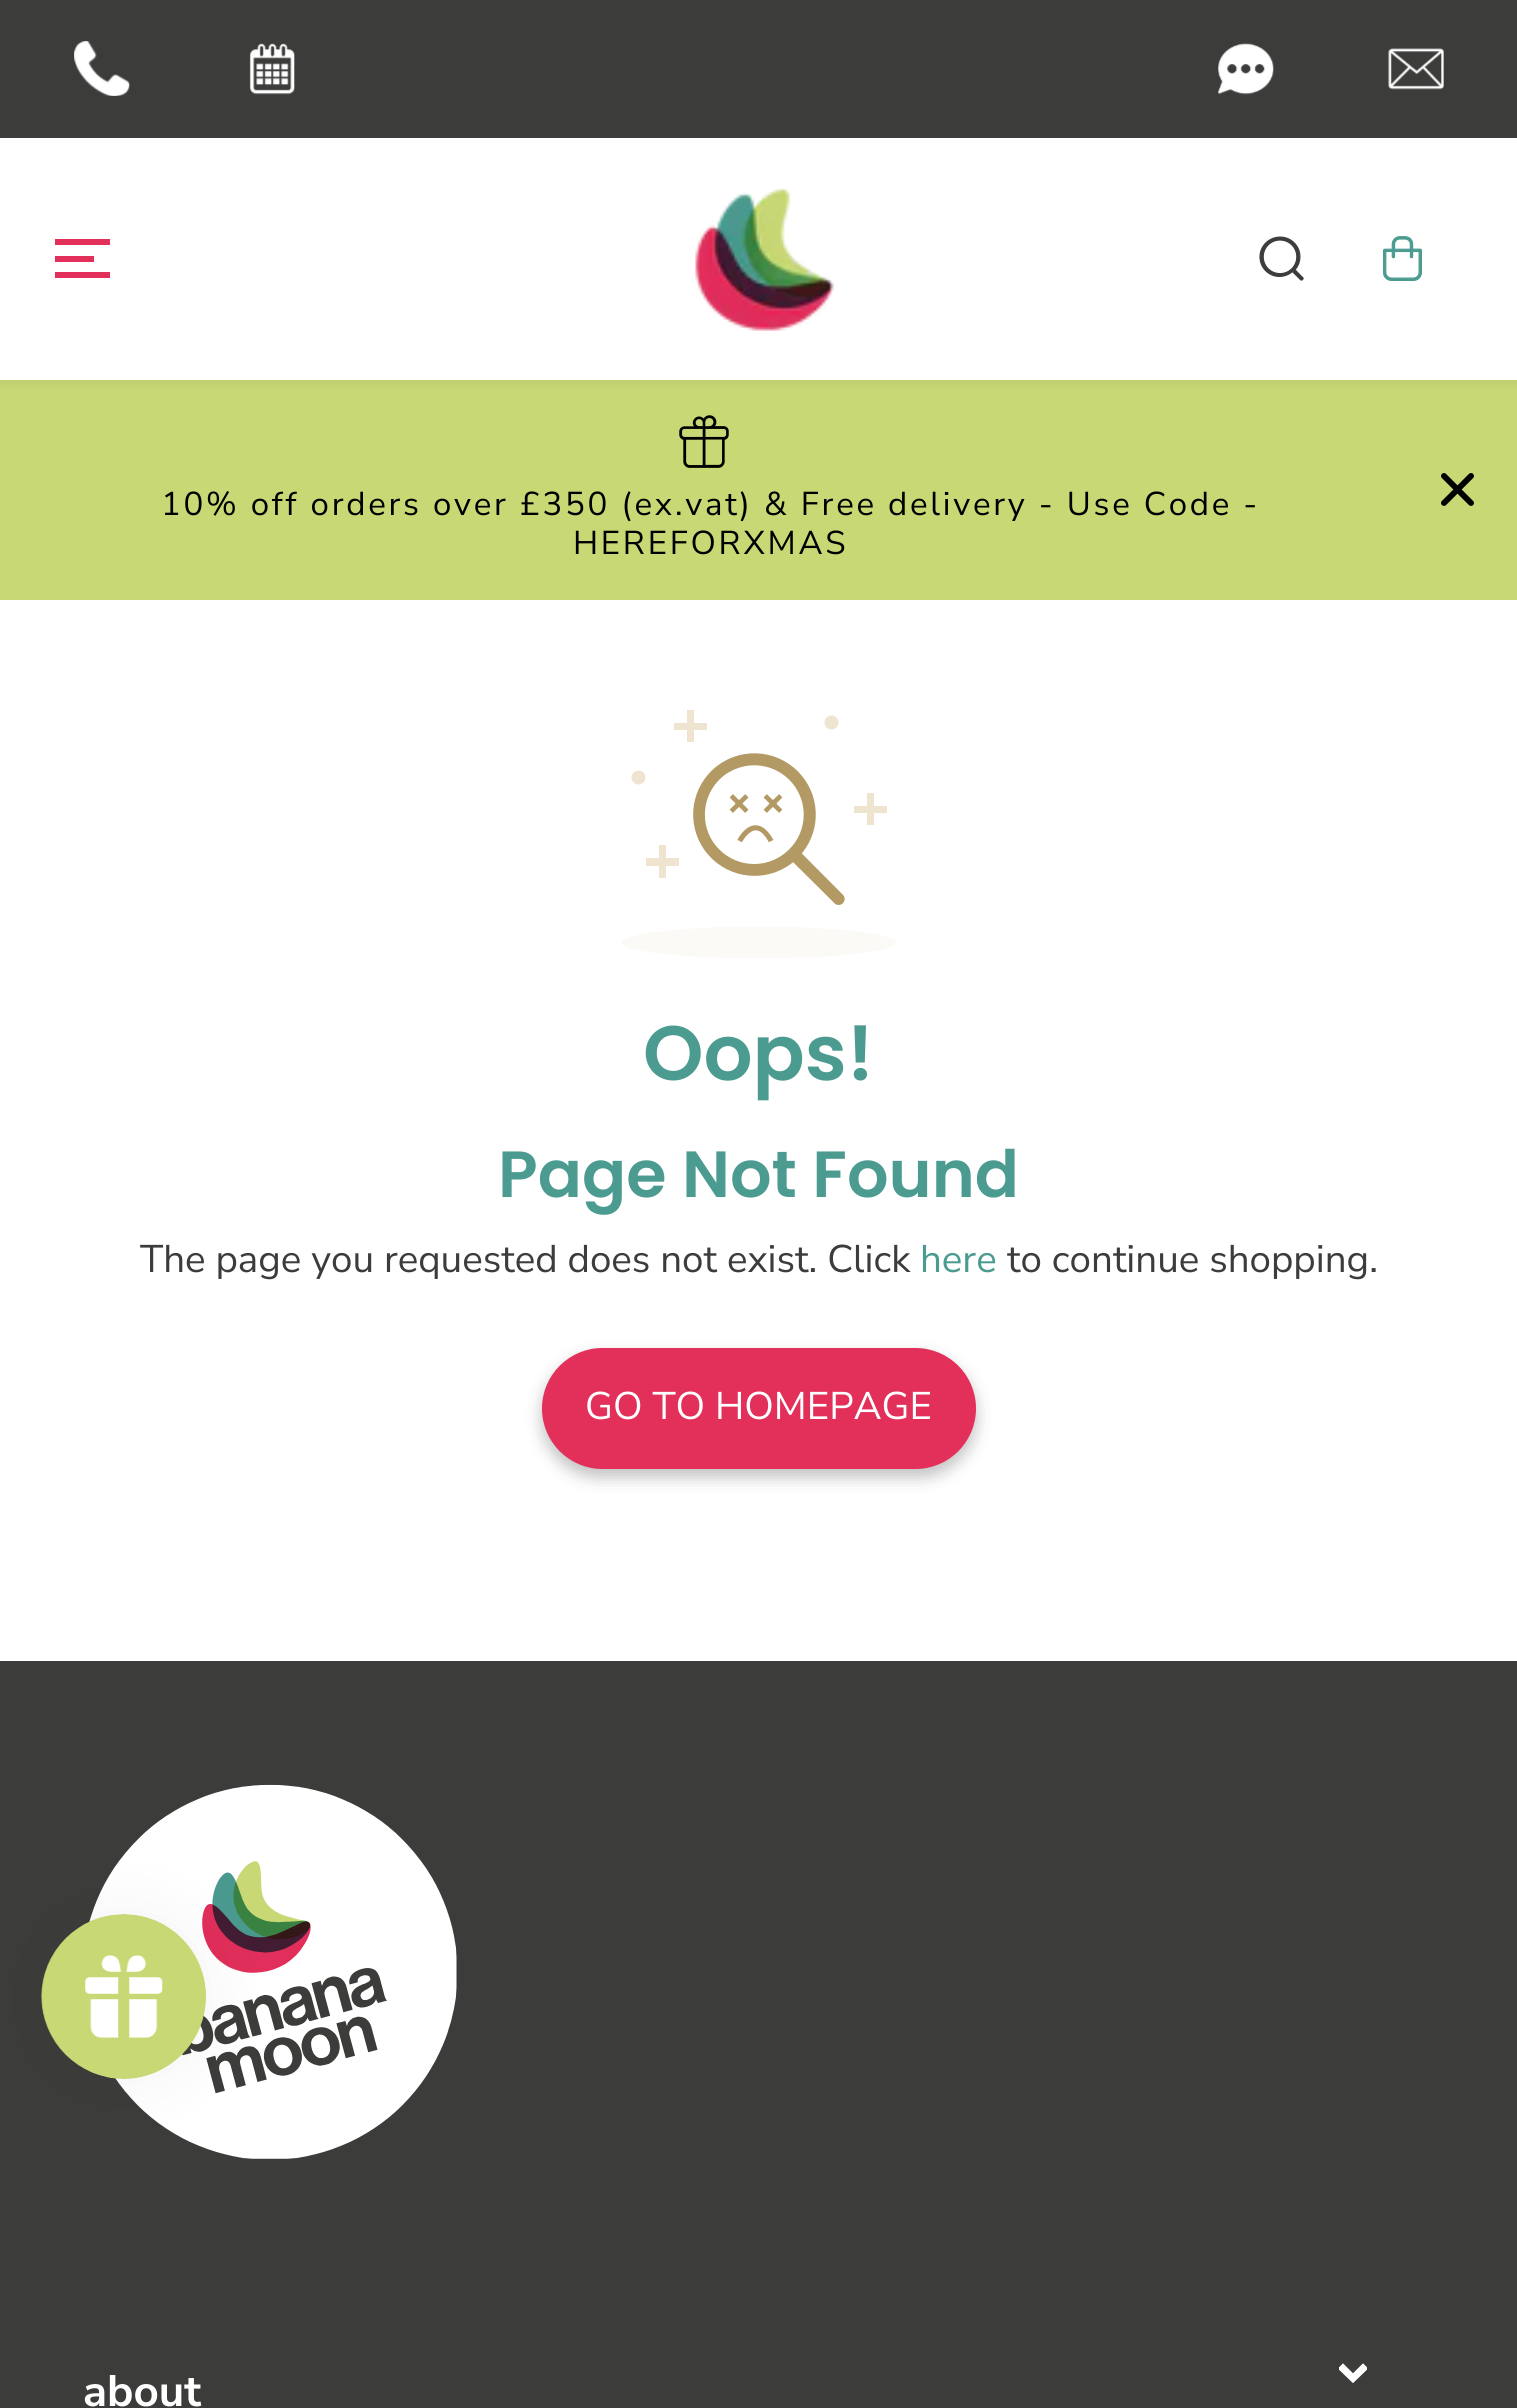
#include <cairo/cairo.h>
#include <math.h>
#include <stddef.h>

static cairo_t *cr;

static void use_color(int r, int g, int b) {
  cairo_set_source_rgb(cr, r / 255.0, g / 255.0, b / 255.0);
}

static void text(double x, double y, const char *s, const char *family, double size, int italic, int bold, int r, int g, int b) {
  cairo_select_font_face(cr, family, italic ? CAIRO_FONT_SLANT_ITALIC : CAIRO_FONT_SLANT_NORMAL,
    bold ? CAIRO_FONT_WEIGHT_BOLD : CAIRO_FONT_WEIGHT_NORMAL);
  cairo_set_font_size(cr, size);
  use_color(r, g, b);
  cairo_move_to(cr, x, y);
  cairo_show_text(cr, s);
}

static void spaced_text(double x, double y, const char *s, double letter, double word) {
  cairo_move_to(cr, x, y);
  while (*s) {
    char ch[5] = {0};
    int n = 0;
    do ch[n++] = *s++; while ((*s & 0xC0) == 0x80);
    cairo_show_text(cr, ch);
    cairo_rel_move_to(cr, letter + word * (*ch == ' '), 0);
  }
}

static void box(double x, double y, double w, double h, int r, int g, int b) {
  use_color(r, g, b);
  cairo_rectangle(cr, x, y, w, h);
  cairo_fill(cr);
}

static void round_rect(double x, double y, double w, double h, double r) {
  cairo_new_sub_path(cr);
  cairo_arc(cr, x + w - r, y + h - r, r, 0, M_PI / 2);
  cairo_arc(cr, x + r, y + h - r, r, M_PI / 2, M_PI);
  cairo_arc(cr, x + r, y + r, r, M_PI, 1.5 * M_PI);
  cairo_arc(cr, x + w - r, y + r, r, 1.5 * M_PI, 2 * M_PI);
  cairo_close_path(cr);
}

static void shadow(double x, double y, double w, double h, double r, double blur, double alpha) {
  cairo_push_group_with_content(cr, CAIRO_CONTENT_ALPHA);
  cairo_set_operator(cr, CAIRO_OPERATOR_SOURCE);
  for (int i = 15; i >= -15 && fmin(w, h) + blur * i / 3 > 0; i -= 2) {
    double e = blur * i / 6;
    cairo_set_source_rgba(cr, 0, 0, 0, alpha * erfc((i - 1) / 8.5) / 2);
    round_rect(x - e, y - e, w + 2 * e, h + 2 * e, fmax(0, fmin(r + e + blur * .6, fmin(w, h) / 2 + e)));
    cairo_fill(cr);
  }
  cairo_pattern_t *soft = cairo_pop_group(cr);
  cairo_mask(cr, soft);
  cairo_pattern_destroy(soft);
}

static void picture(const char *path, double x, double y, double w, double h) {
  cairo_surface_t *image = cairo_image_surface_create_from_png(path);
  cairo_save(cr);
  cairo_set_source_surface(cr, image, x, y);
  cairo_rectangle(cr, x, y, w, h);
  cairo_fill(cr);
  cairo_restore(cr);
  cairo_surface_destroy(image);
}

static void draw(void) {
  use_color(255, 255, 255);
  cairo_paint(cr);
  box(0, 0, 1517, 138, 60, 60, 59);
  picture("img_01.png", 74, 41, 56, 55);
  picture("img_02.png", 249, 43, 46, 52);
  picture("img_03.png", 1218, 43, 56, 52);
  picture("img_04.png", 1388, 48, 56, 42);
  box(0, 380, 1517, 220, 200, 216, 116);
  cairo_save(cr);
  cairo_set_fill_rule(cr, CAIRO_FILL_RULE_EVEN_ODD);
  cairo_new_path(cr);
  cairo_move_to(cr, 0, 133);
  cairo_line_to(cr, 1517, 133);
  cairo_line_to(cr, 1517, 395);
  cairo_line_to(cr, 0, 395);
  cairo_close_path(cr);
  cairo_move_to(cr, 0, 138);
  cairo_line_to(cr, 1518, 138);
  cairo_line_to(cr, 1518, 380);
  cairo_line_to(cr, 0, 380);
  cairo_close_path(cr);
  cairo_clip(cr);
  use_color(0, 0, 0);
  shadow(0, 143, 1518, 242, 0, 3, 0.05);
  cairo_restore(cr);
  box(55, 256, 39, 6, 226, 48, 90);
  box(55, 239, 55, 6, 226, 48, 90);
  box(55, 272, 55, 6, 226, 48, 90);
  picture("img_05.png", 695, 187, 139, 144);
  picture("img_06.png", 1259, 236, 45, 45);
  picture("img_07.png", 1383, 236, 39, 45);
  picture("img_08.png", 679, 415, 50, 53);
  picture("img_09.png", 1441, 473, 33, 33);
  picture("img_10.png", 622, 710, 274, 248);
  use_color(0, 0, 0);
  shadow(542, 1356, 434, 121, 60.5, 8, 0.25);
  use_color(226, 48, 90);
  round_rect(543.5, 1349.5, 431, 118, 59);
  cairo_fill_preserve(cr);
  cairo_set_line_width(cr, 3);
  cairo_stroke(cr);
  box(0, 1661, 1517, 747, 60, 60, 59);
  picture("img_11.png", 89, 1784, 368, 375);
  use_color(255, 255, 255);
  cairo_new_path(cr);
  cairo_move_to(cr, 1353, 2382);
  cairo_line_to(cr, 1339, 2368.5);
  cairo_line_to(cr, 1343, 2364.5);
  cairo_line_to(cr, 1353, 2374.5);
  cairo_line_to(cr, 1363, 2364.5);
  cairo_line_to(cr, 1367, 2368.5);
  cairo_close_path(cr);
  cairo_fill(cr);
  cairo_save(cr);
  cairo_rectangle(cr, 1339, 2360, 28, 27);
  cairo_clip(cr);
  cairo_new_path(cr);
  cairo_move_to(cr, 1353, 2382);
  cairo_line_to(cr, 1339, 2368.5);
  cairo_line_to(cr, 1343, 2364.5);
  cairo_line_to(cr, 1353, 2374.5);
  cairo_line_to(cr, 1363, 2364.5);
  cairo_line_to(cr, 1367, 2368.5);
  cairo_close_path(cr);
  cairo_set_line_width(cr, 1.7);
  cairo_stroke(cr);
  cairo_restore(cr);
  use_color(0, 0, 0);
  shadow(41, 1914, 165, 165, 82.5, 34.5, 0.05);
  picture("img_12.png", 41, 1914, 166, 165);
  cairo_select_font_face(cr, "Nunito Sans", CAIRO_FONT_SLANT_NORMAL, CAIRO_FONT_WEIGHT_NORMAL);
  cairo_set_font_size(cr, 33);
  use_color(0, 0, 0);
  spaced_text(161, 515, "10% off orders over £350 (ex.vat) & Free delivery - Use Code -", 2.75, 0);
  spaced_text(573, 554, "HEREFORXMAS", 2.75, 0);
  text(643, 1080, "Oops!", "Poppins SemiBold", 77, 0, 0, 75, 155, 145);
  text(498, 1197, "Page Not Found", "Poppins SemiBold", 65.25, 0, 0, 75, 155, 145);
  text(140, 1272, "The page you requested does not exist. Click", "Nunito Sans", 38.5, 0, 0, 60, 60, 59);
  text(920, 1272, "here", "Nunito Sans", 38.5, 0, 0, 75, 155, 145);
  text(1007, 1272, "to continue shopping.", "Nunito Sans", 38.5, 0, 0, 60, 60, 59);
  text(585, 1419, "GO TO HOMEPAGE", "Nunito Sans", 38.5, 0, 0, 255, 255, 255);
  text(83, 2406, "about", "Nunito Sans", 44, 0, 1, 255, 255, 255);
}

int main(void) {
  cairo_surface_t *surface = cairo_image_surface_create(CAIRO_FORMAT_RGB24, 1517, 2408);
  cr = cairo_create(surface);
  cairo_font_options_t *options = cairo_font_options_create();
  cairo_font_options_set_hint_metrics(options, CAIRO_HINT_METRICS_OFF);
  cairo_font_options_set_hint_style(options, CAIRO_HINT_STYLE_NONE);
  cairo_set_font_options(cr, options);
  cairo_set_miter_limit(cr, 4);
  draw();
  cairo_surface_write_to_png(surface, "out.png");
  cairo_font_options_destroy(options);
  cairo_destroy(cr);
  cairo_surface_destroy(surface);
  return 0;
}
